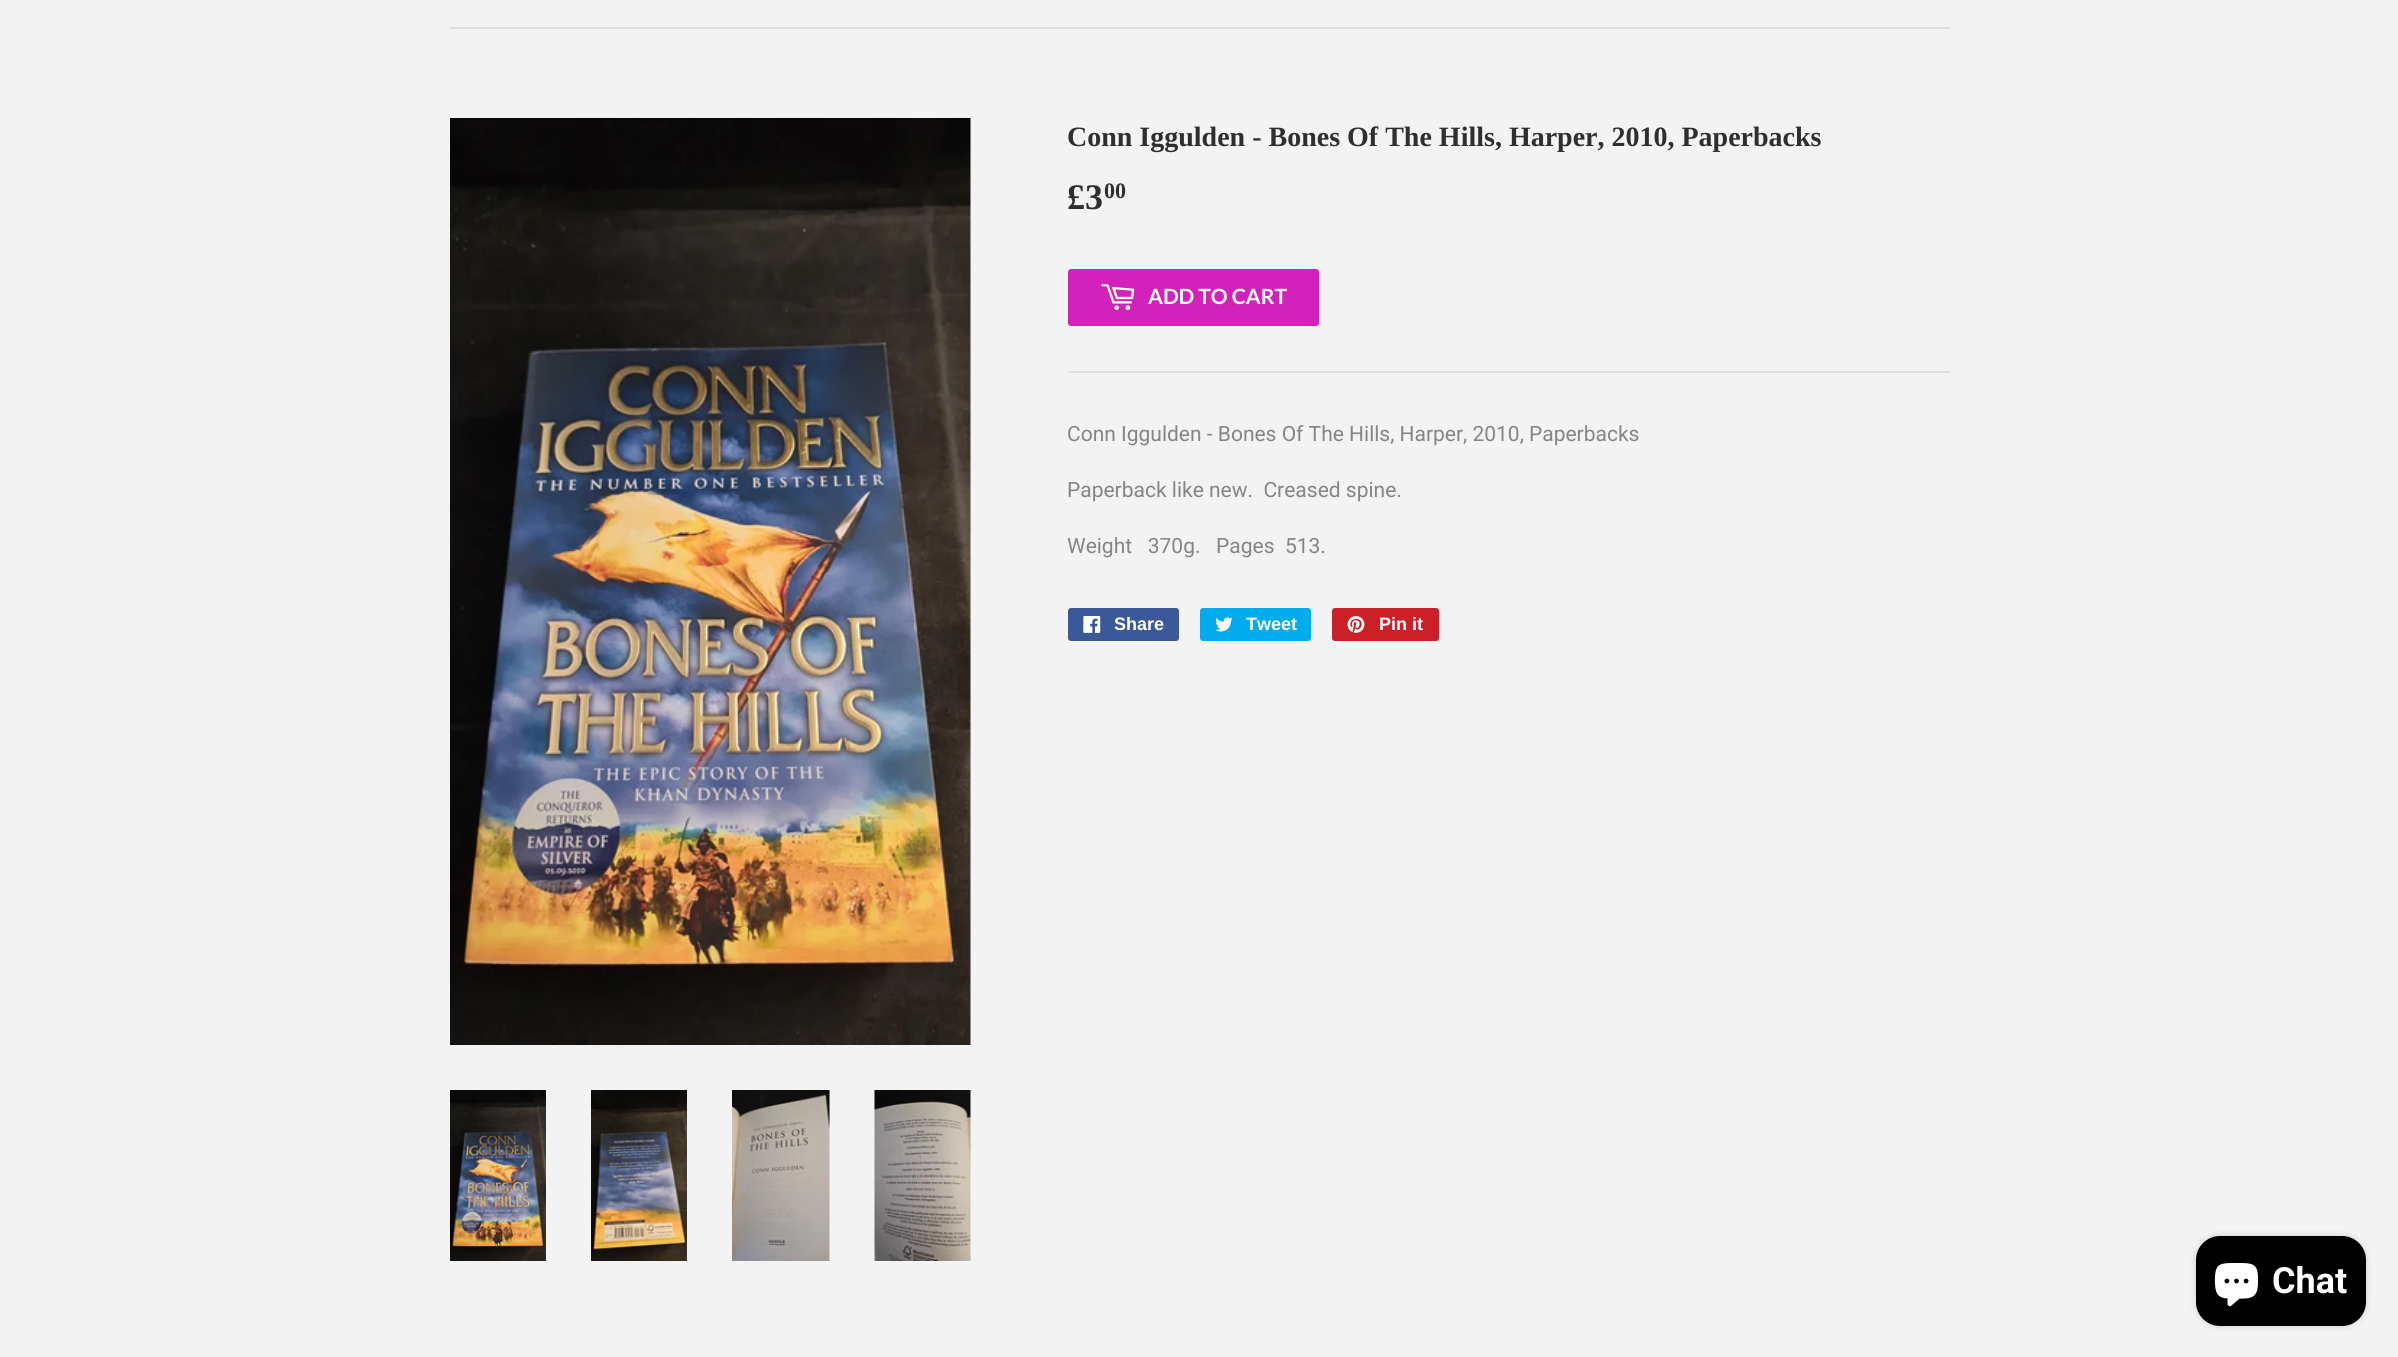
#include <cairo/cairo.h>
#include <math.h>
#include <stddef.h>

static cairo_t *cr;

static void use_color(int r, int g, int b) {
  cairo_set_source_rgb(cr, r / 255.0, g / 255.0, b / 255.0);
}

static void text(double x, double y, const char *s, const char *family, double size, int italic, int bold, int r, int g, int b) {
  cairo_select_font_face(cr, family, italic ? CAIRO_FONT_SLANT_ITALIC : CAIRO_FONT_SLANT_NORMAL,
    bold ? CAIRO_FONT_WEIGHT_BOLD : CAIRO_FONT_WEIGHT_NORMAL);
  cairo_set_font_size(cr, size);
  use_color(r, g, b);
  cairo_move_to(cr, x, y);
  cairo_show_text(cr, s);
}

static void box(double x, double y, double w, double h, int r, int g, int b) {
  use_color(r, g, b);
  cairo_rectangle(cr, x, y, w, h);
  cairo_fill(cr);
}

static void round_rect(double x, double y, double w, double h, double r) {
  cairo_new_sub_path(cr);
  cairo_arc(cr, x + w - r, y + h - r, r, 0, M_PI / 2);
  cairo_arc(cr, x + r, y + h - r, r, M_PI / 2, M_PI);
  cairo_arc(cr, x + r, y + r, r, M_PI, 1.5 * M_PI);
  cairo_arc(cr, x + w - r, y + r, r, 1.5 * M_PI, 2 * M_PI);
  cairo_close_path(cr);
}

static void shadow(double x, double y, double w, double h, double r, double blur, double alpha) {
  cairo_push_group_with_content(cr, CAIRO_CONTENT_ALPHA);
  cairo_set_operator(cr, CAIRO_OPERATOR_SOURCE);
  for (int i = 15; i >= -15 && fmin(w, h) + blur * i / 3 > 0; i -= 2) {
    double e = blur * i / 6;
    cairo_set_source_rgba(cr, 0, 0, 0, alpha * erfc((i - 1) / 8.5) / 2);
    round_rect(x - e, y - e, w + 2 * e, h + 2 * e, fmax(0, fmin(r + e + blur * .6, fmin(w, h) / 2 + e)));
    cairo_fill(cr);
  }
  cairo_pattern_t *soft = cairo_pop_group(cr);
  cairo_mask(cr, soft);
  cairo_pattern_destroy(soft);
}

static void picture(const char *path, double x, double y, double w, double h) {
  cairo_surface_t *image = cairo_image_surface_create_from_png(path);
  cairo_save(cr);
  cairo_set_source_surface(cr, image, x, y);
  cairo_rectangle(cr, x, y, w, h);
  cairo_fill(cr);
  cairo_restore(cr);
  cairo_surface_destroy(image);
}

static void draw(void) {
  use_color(243, 243, 243);
  cairo_paint(cr);
  box(450, 27, 1500, 2, 222, 222, 222);
  picture("img_01.png", 450, 118, 521, 927);
  picture("img_02.png", 450, 1090, 96, 171);
  picture("img_03.png", 591, 1090, 96, 171);
  picture("img_04.png", 732, 1090, 98, 171);
  picture("img_05.png", 874, 1090, 97, 171);
  use_color(211, 33, 187);
  round_rect(1068, 269, 251, 57, 3);
  cairo_fill(cr);
  picture("img_06.png", 1101, 284, 34, 26);
  box(1068, 371, 882, 2, 222, 222, 222);
  use_color(59, 89, 152);
  round_rect(1068, 608, 111, 33, 3);
  cairo_fill(cr);
  picture("img_07.png", 1083, 616, 18, 17);
  use_color(0, 172, 237);
  round_rect(1200, 608, 111, 33, 3);
  cairo_fill(cr);
  picture("img_08.png", 1215, 617, 18, 15);
  use_color(203, 32, 39);
  round_rect(1332, 608, 107, 33, 3);
  cairo_fill(cr);
  picture("img_09.png", 1347, 616, 18, 17);
  use_color(0, 0, 0);
  shadow(2196, 1236, 170, 90, 24, 4, 0.15);
  use_color(0, 0, 0);
  round_rect(2196, 1236, 170, 90, 24);
  cairo_fill(cr);
  picture("img_10.png", 2214, 1263, 45, 44);
  text(1067, 146, "Conn Iggulden - Bones Of The Hills, Harper, 2010, Paperbacks", "Liberation Serif", 28, 0, 1, 47, 47, 47);
  text(1067, 209, "£3", "Liberation Serif", 36, 0, 1, 47, 47, 47);
  text(1104, 198, "00", "Liberation Serif", 22, 0, 1, 47, 47, 47);
  text(1148, 304, "ADD TO CART", "Lato", 21, 0, 1, 255, 255, 255);
  text(1067, 441, "Conn Iggulden - Bones Of The Hills, Harper, 2010, Paperbacks", "Roboto", 21, 0, 0, 133, 133, 133);
  text(1067, 497, "Paperback like new.  Creased spine.", "Roboto", 21, 0, 0, 133, 133, 133);
  text(1067, 553, "Weight   370g.   Pages  513.", "Roboto", 21, 0, 0, 133, 133, 133);
  text(1114, 630, "Share", "Liberation Sans", 18, 0, 1, 255, 255, 255);
  text(1246, 630, "Tweet", "Liberation Sans", 18, 0, 1, 255, 255, 255);
  text(1379, 630, "Pin it", "Liberation Sans", 18, 0, 1, 255, 255, 255);
  text(2272, 1293, "Chat", "Roboto", 36, 0, 1, 255, 255, 255);
}

int main(void) {
  cairo_surface_t *surface = cairo_image_surface_create(CAIRO_FORMAT_RGB24, 2398, 1357);
  cr = cairo_create(surface);
  cairo_font_options_t *options = cairo_font_options_create();
  cairo_font_options_set_hint_metrics(options, CAIRO_HINT_METRICS_OFF);
  cairo_font_options_set_hint_style(options, CAIRO_HINT_STYLE_NONE);
  cairo_set_font_options(cr, options);
  cairo_set_miter_limit(cr, 4);
  draw();
  cairo_surface_write_to_png(surface, "out.png");
  cairo_font_options_destroy(options);
  cairo_destroy(cr);
  cairo_surface_destroy(surface);
  return 0;
}
